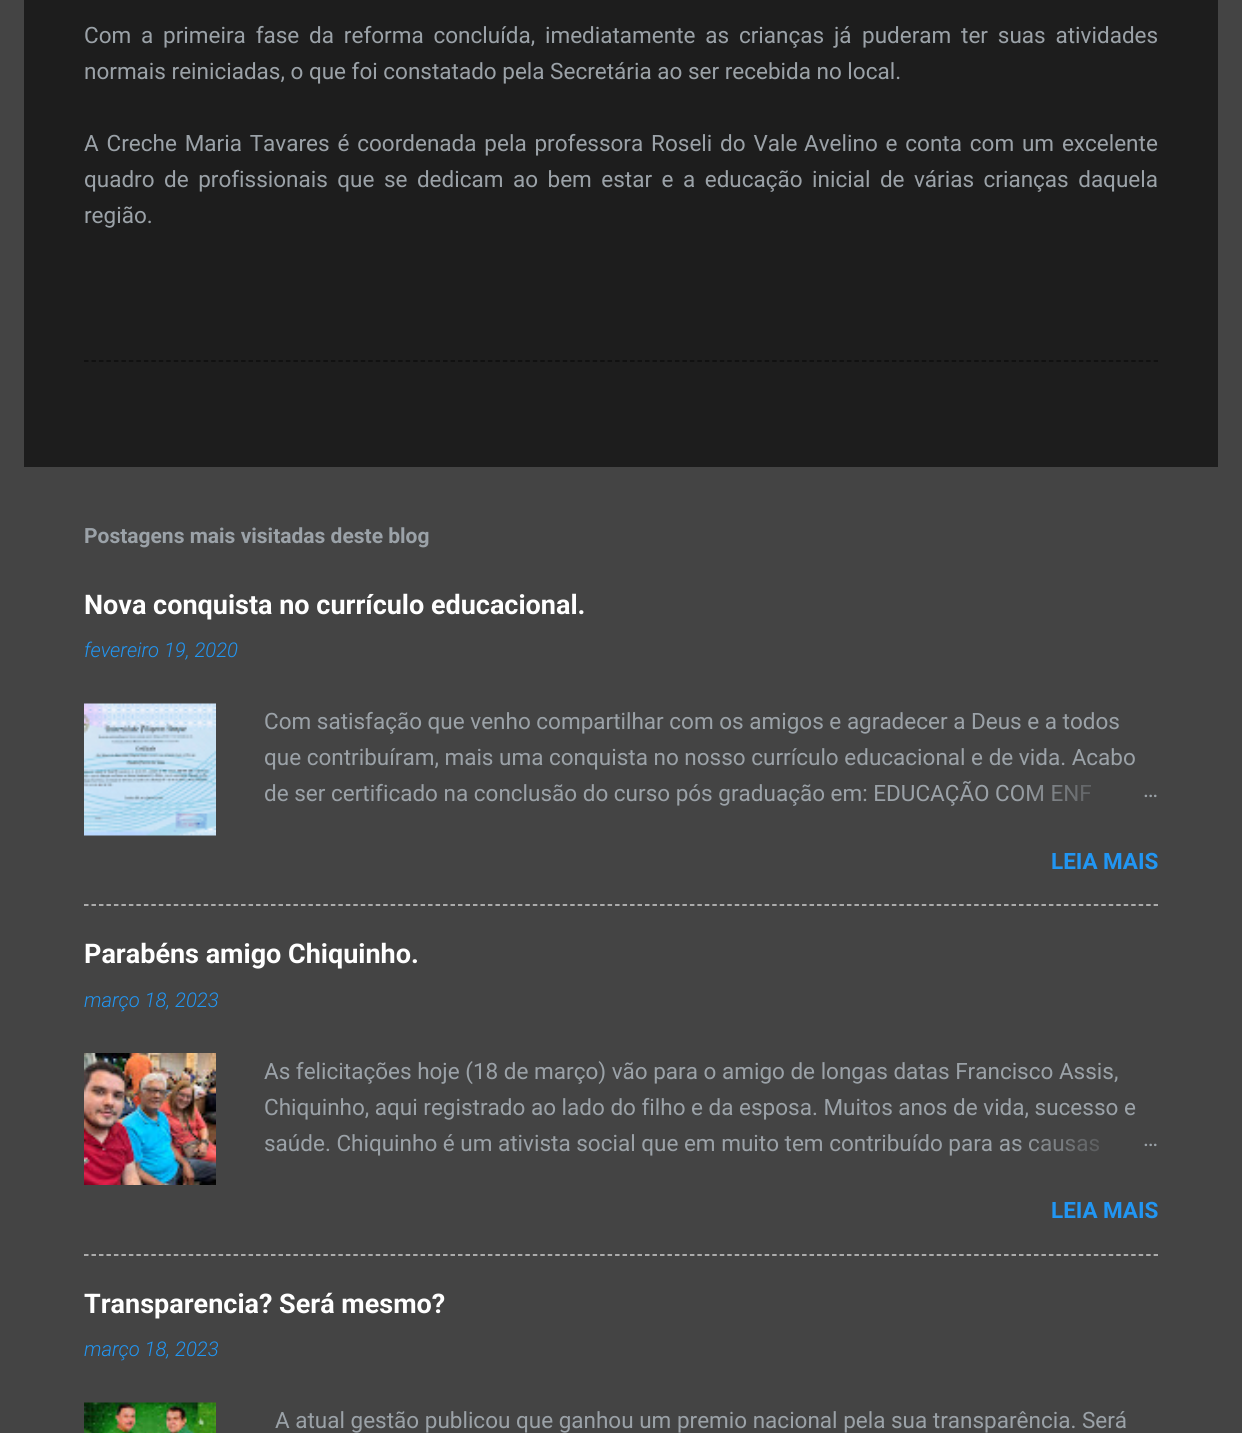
#include <cairo/cairo.h>
#include <math.h>
#include <stddef.h>

static cairo_t *cr;

static void use_color(int r, int g, int b) {
  cairo_set_source_rgb(cr, r / 255.0, g / 255.0, b / 255.0);
}

static void text(double x, double y, const char *s, const char *family, double size, int italic, int bold, int r, int g, int b) {
  cairo_select_font_face(cr, family, italic ? CAIRO_FONT_SLANT_ITALIC : CAIRO_FONT_SLANT_NORMAL,
    bold ? CAIRO_FONT_WEIGHT_BOLD : CAIRO_FONT_WEIGHT_NORMAL);
  cairo_set_font_size(cr, size);
  use_color(r, g, b);
  cairo_move_to(cr, x, y);
  cairo_show_text(cr, s);
}

static void spaced_text(double x, double y, const char *s, double letter, double word) {
  cairo_move_to(cr, x, y);
  while (*s) {
    char ch[5] = {0};
    int n = 0;
    do ch[n++] = *s++; while ((*s & 0xC0) == 0x80);
    cairo_show_text(cr, ch);
    cairo_rel_move_to(cr, letter + word * (*ch == ' '), 0);
  }
}

static void box(double x, double y, double w, double h, int r, int g, int b) {
  use_color(r, g, b);
  cairo_rectangle(cr, x, y, w, h);
  cairo_fill(cr);
}

static void picture(const char *path, double x, double y, double w, double h) {
  cairo_surface_t *image = cairo_image_surface_create_from_png(path);
  cairo_save(cr);
  cairo_set_source_surface(cr, image, x, y);
  cairo_rectangle(cr, x, y, w, h);
  cairo_fill(cr);
  cairo_restore(cr);
  cairo_surface_destroy(image);
}

static void draw(void) {
  cairo_pattern_t *gradient;
  use_color(68, 68, 68);
  cairo_paint(cr);
  box(24, 0, 1194, 467, 29, 29, 29);
  cairo_new_path(cr);
  cairo_move_to(cr, 84, 361);
  cairo_line_to(cr, 1158, 361);
  use_color(13, 13, 13);
  cairo_set_line_width(cr, 1.5);
  cairo_set_dash(cr, (double[]){4.5, 2.98}, 2, 0);
  cairo_stroke(cr);
  picture("img_01.png", 84, 703, 132, 133);
  cairo_new_path(cr);
  cairo_move_to(cr, 84, 905);
  cairo_line_to(cr, 1158, 905);
  use_color(204, 204, 204);
  cairo_stroke(cr);
  picture("img_02.png", 84, 1053, 132, 132);
  cairo_new_path(cr);
  cairo_move_to(cr, 84, 1255);
  cairo_line_to(cr, 1158, 1255);
  cairo_stroke(cr);
  picture("img_03.png", 84, 1402, 132, 31);
  cairo_select_font_face(cr, "Roboto", CAIRO_FONT_SLANT_NORMAL, CAIRO_FONT_WEIGHT_NORMAL);
  cairo_set_font_size(cr, 22.5);
  use_color(155, 162, 168);
  spaced_text(84, 43, "Com a primeira fase da reforma concluída, imediatamente as crianças já", 0, 4.25);
  spaced_text(862, 43, "puderam ter suas atividades", 0, 4.25);
  text(84, 79, "normais reiniciadas, o que foi constatado pela Secretária ao ser recebida no local.", "Roboto", 22.5, 0, 0, 155, 162, 168);
  spaced_text(84, 151, "A Creche Maria Tavares é coordenada pela professora Roseli do Vale", 0, 2.25);
  spaced_text(804, 151, "Avelino e conta com um excelente", 0, 2.25);
  spaced_text(84, 187, "quadro de profissionais que se dedicam", 0, 3.9);
  spaced_text(513, 187, "ao bem estar e a educação inicial de várias crianças daquela", 0, 3.9);
  text(84, 223, "região.", "Roboto", 22.5, 0, 0, 155, 162, 168);
  text(84, 543, "Postagens mais visitadas deste blog", "Roboto", 21, 0, 1, 155, 162, 168);
  text(84, 614, "Nova conquista no currículo educacional.", "Roboto", 27, 0, 1, 255, 255, 255);
  text(84, 657, "fevereiro 19, 2020", "Roboto Light", 20.25, 1, 0, 33, 150, 243);
  text(264, 729, "Com satisfação que venho compartilhar com os amigos e agradecer a Deus e a todos", "Roboto", 22.5, 0, 0, 155, 162, 168);
  text(264, 765, "que contribuíram, mais uma conquista no nosso currículo educacional e de vida. Acabo", "Roboto", 22.5, 0, 0, 155, 162, 168);
  text(264, 801, "de ser certificado na conclusão do curso pós graduação em: EDUCAÇÃO COM ENF", "Roboto", 22.5, 0, 0, 155, 162, 168);
  gradient = cairo_pattern_create_linear(1158, 794, 1014, 794);
  cairo_pattern_add_color_stop_rgba(gradient, 0, 0.267, 0.267, 0.267, 1);
  cairo_pattern_add_color_stop_rgba(gradient, 0.2, 0.267, 0.267, 0.267, 1);
  cairo_pattern_add_color_stop_rgba(gradient, 1, 0.267, 0.267, 0.267, 0);
  cairo_set_source(cr, gradient);
  cairo_pattern_destroy(gradient);
  cairo_rectangle(cr, 1016, 785, 76, 16);
  cairo_fill(cr);
  text(1143, 797, "…", "Roboto", 22.5, 0, 0, 155, 162, 168);
  text(1051, 869, "LEIA MAIS", "Roboto", 22.5, 0, 1, 33, 150, 243);
  text(84, 963, "Parabéns amigo Chiquinho.", "Roboto", 27, 0, 1, 255, 255, 255);
  text(84, 1007, "março 18, 2023", "Roboto Light", 20.25, 1, 0, 33, 150, 243);
  text(264, 1079, "As felicitações hoje (18 de março) vão para o amigo de longas datas Francisco Assis,", "Roboto", 22.5, 0, 0, 155, 162, 168);
  text(264, 1115, "Chiquinho, aqui registrado ao lado do filho e da esposa. Muitos anos de vida, sucesso e", "Roboto", 22.5, 0, 0, 155, 162, 168);
  text(264, 1151, "saúde. Chiquinho é um ativista social que em muito tem contribuído para as causas", "Roboto", 22.5, 0, 0, 155, 162, 168);
  gradient = cairo_pattern_create_linear(1158, 1143, 1014, 1143);
  cairo_pattern_add_color_stop_rgba(gradient, 0, 0.267, 0.267, 0.267, 1);
  cairo_pattern_add_color_stop_rgba(gradient, 0.2, 0.267, 0.267, 0.267, 1);
  cairo_pattern_add_color_stop_rgba(gradient, 1, 0.267, 0.267, 0.267, 0);
  cairo_set_source(cr, gradient);
  cairo_pattern_destroy(gradient);
  cairo_rectangle(cr, 1016, 1138, 83, 14);
  cairo_fill(cr);
  text(1143, 1146, "…", "Roboto", 22.5, 0, 0, 155, 162, 168);
  text(1051, 1218, "LEIA MAIS", "Roboto", 22.5, 0, 1, 33, 150, 243);
  text(84, 1313, "Transparencia? Será mesmo?", "Roboto", 27, 0, 1, 255, 255, 255);
  text(84, 1356, "março 18, 2023", "Roboto Light", 20.25, 1, 0, 33, 150, 243);
  text(275, 1428, "A atual gestão publicou que ganhou um premio nacional pela sua transparência. Será", "Roboto", 22.5, 0, 0, 155, 162, 168);
}

int main(void) {
  cairo_surface_t *surface = cairo_image_surface_create(CAIRO_FORMAT_RGB24, 1242, 1433);
  cr = cairo_create(surface);
  cairo_font_options_t *options = cairo_font_options_create();
  cairo_font_options_set_hint_metrics(options, CAIRO_HINT_METRICS_OFF);
  cairo_font_options_set_hint_style(options, CAIRO_HINT_STYLE_NONE);
  cairo_set_font_options(cr, options);
  cairo_set_miter_limit(cr, 4);
  draw();
  cairo_surface_write_to_png(surface, "out.png");
  cairo_font_options_destroy(options);
  cairo_destroy(cr);
  cairo_surface_destroy(surface);
  return 0;
}
